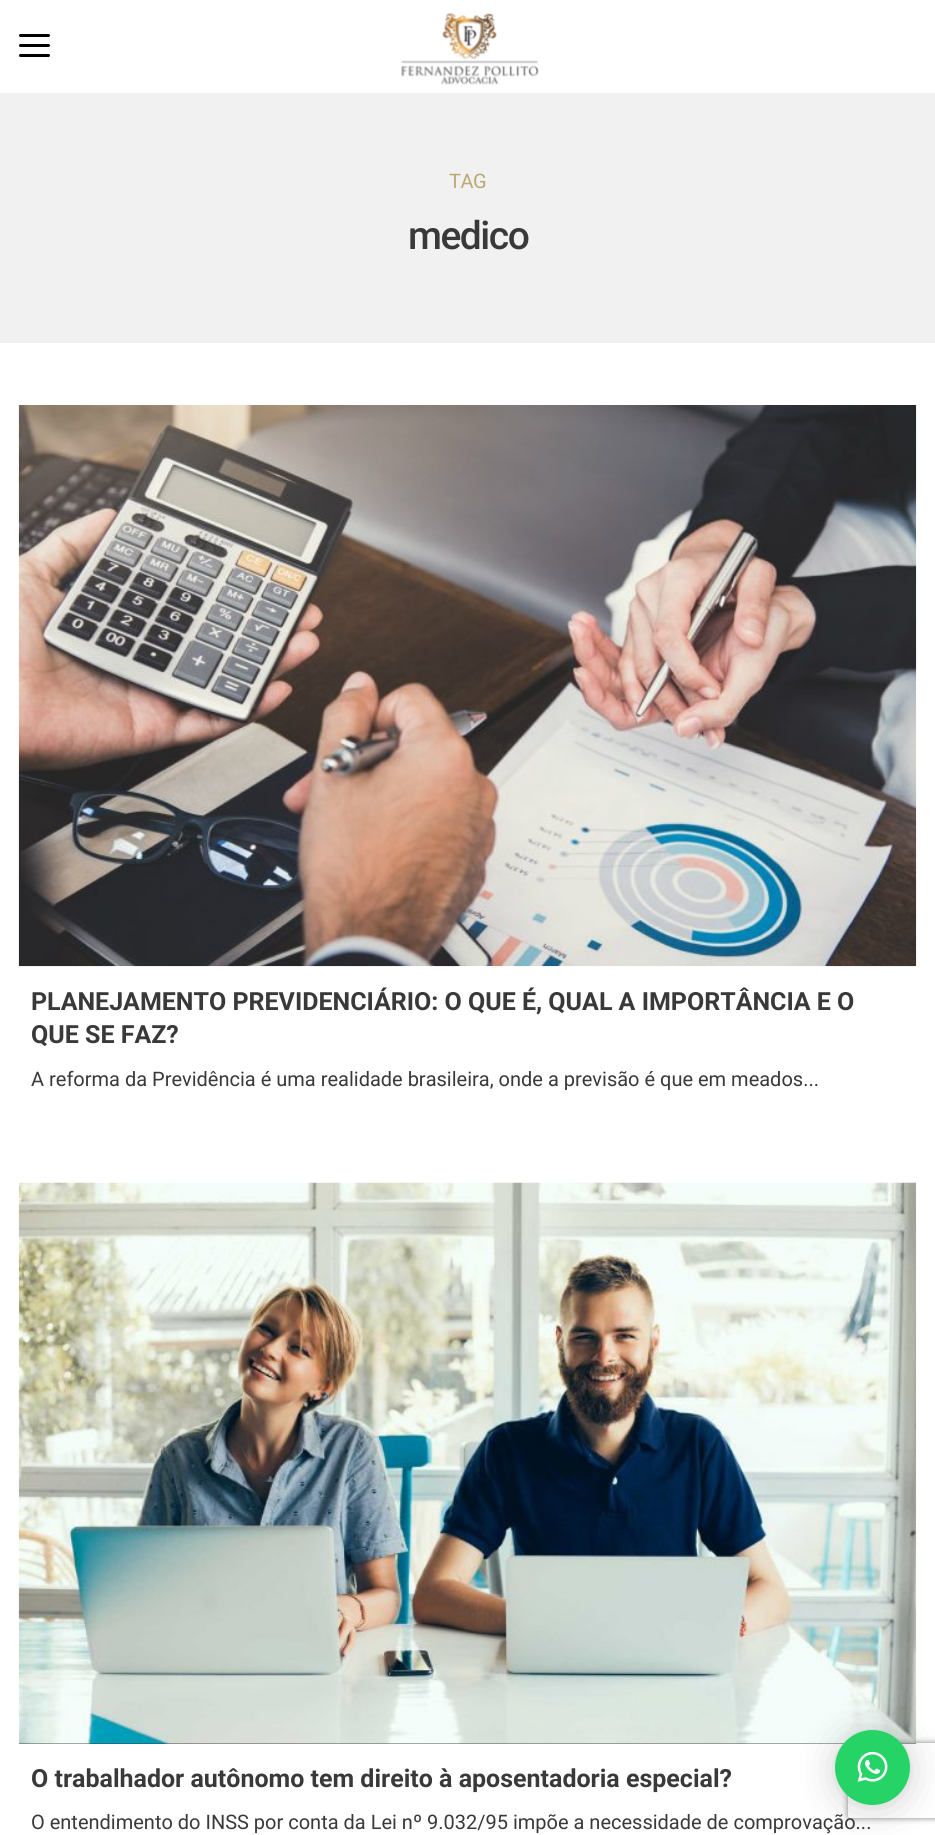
#include <cairo/cairo.h>
#include <math.h>
#include <stddef.h>

static cairo_t *cr;

static void use_color(int r, int g, int b) {
  cairo_set_source_rgb(cr, r / 255.0, g / 255.0, b / 255.0);
}

static void text(double x, double y, const char *s, const char *family, double size, int italic, int bold, int r, int g, int b) {
  cairo_select_font_face(cr, family, italic ? CAIRO_FONT_SLANT_ITALIC : CAIRO_FONT_SLANT_NORMAL,
    bold ? CAIRO_FONT_WEIGHT_BOLD : CAIRO_FONT_WEIGHT_NORMAL);
  cairo_set_font_size(cr, size);
  use_color(r, g, b);
  cairo_move_to(cr, x, y);
  cairo_show_text(cr, s);
}

static void spaced_text(double x, double y, const char *s, double letter, double word) {
  cairo_move_to(cr, x, y);
  while (*s) {
    char ch[5] = {0};
    int n = 0;
    do ch[n++] = *s++; while ((*s & 0xC0) == 0x80);
    cairo_show_text(cr, ch);
    cairo_rel_move_to(cr, letter + word * (*ch == ' '), 0);
  }
}

static void box(double x, double y, double w, double h, int r, int g, int b) {
  use_color(r, g, b);
  cairo_rectangle(cr, x, y, w, h);
  cairo_fill(cr);
}

static void round_rect(double x, double y, double w, double h, double r) {
  cairo_new_sub_path(cr);
  cairo_arc(cr, x + w - r, y + h - r, r, 0, M_PI / 2);
  cairo_arc(cr, x + r, y + h - r, r, M_PI / 2, M_PI);
  cairo_arc(cr, x + r, y + r, r, M_PI, 1.5 * M_PI);
  cairo_arc(cr, x + w - r, y + r, r, 1.5 * M_PI, 2 * M_PI);
  cairo_close_path(cr);
}

static void shadow(double x, double y, double w, double h, double r, double blur, double alpha) {
  cairo_push_group_with_content(cr, CAIRO_CONTENT_ALPHA);
  cairo_set_operator(cr, CAIRO_OPERATOR_SOURCE);
  for (int i = 15; i >= -15 && fmin(w, h) + blur * i / 3 > 0; i -= 2) {
    double e = blur * i / 6;
    cairo_set_source_rgba(cr, 0, 0, 0, alpha * erfc((i - 1) / 8.5) / 2);
    round_rect(x - e, y - e, w + 2 * e, h + 2 * e, fmax(0, fmin(r + e + blur * .6, fmin(w, h) / 2 + e)));
    cairo_fill(cr);
  }
  cairo_pattern_t *soft = cairo_pop_group(cr);
  cairo_mask(cr, soft);
  cairo_pattern_destroy(soft);
}

static void picture(const char *path, double x, double y, double w, double h) {
  cairo_surface_t *image = cairo_image_surface_create_from_png(path);
  cairo_save(cr);
  cairo_set_source_surface(cr, image, x, y);
  cairo_rectangle(cr, x, y, w, h);
  cairo_fill(cr);
  cairo_restore(cr);
  cairo_surface_destroy(image);
}

static void draw(void) {
  use_color(255, 255, 255);
  cairo_paint(cr);
  use_color(0, 0, 0);
  round_rect(19, 44, 31, 3, 1.5);
  cairo_fill(cr);
  round_rect(19, 34, 31, 3, 1.5);
  cairo_fill(cr);
  round_rect(19, 54, 31, 3, 1.5);
  cairo_fill(cr);
  picture("img_01.png", 401, 12, 138, 73);
  box(0, 93, 935, 250, 241, 241, 241);
  picture("img_02.png", 18, 405, 899, 562);
  box(19, 1743, 897, 1, 57, 57, 57);
  picture("img_03.png", 18, 1182, 899, 562);
  use_color(0, 0, 0);
  shadow(835, 1733, 75, 75, 37.5, 20, 0.16);
  shadow(835, 1731, 75, 75, 37.5, 4, 0.06);
  cairo_save(cr);
  cairo_set_fill_rule(cr, CAIRO_FILL_RULE_EVEN_ODD);
  cairo_new_path(cr);
  cairo_move_to(cr, 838, 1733);
  cairo_line_to(cr, 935, 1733);
  cairo_line_to(cr, 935, 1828);
  cairo_line_to(cr, 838, 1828);
  cairo_close_path(cr);
  cairo_move_to(cr, 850.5, 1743);
  cairo_line_to(cr, 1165.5, 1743);
  cairo_curve_to(cr, 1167, 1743, 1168, 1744, 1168, 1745.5);
  cairo_line_to(cr, 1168, 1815.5);
  cairo_curve_to(cr, 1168, 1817, 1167, 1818, 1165.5, 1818);
  cairo_line_to(cr, 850.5, 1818);
  cairo_curve_to(cr, 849, 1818, 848, 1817, 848, 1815.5);
  cairo_line_to(cr, 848, 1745.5);
  cairo_curve_to(cr, 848, 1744, 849, 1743, 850.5, 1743);
  cairo_close_path(cr);
  cairo_clip(cr);
  use_color(128, 128, 128);
  shadow(848, 1743, 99, 75, 2.5, 3, 1);
  cairo_restore(cr);
  use_color(37, 211, 102);
  cairo_arc(cr, 872.5, 1767.5, 37.5, 0, 2 * M_PI);
  cairo_fill(cr);
  picture("img_04.png", 857, 1751, 31, 31);
  cairo_select_font_face(cr, "Roboto", CAIRO_FONT_SLANT_NORMAL, CAIRO_FONT_WEIGHT_NORMAL);
  cairo_set_font_size(cr, 20);
  use_color(188, 169, 113);
  spaced_text(449, 188, "TAG", -0.5, 0);
  cairo_select_font_face(cr, "Roboto Medium", CAIRO_FONT_SLANT_NORMAL, CAIRO_FONT_WEIGHT_NORMAL);
  cairo_set_font_size(cr, 39);
  use_color(57, 57, 57);
  spaced_text(408, 249, "medico", -1.5, 0);
  text(31, 1010, "PLANEJAMENTO PREVIDENCIÁRIO: O QUE É, QUAL A IMPORTÂNCIA E O", "Roboto", 25, 0, 1, 57, 57, 57);
  text(31, 1043, "QUE SE FAZ?", "Roboto", 25, 0, 1, 57, 57, 57);
  text(31, 1086, "A reforma da Previdência é uma realidade brasileira, onde a previsão é que em meados...", "Roboto", 20, 0, 0, 57, 57, 57);
  text(31, 1787, "O trabalhador autônomo tem direito à aposentadoria especial?", "Roboto", 25, 0, 1, 57, 57, 57);
  text(31, 1829, "O entendimento do INSS por conta da Lei nº 9.032/95 impõe a necessidade de comprovação...", "Roboto", 20, 0, 0, 57, 57, 57);
}

int main(void) {
  cairo_surface_t *surface = cairo_image_surface_create(CAIRO_FORMAT_RGB24, 935, 1835);
  cr = cairo_create(surface);
  cairo_font_options_t *options = cairo_font_options_create();
  cairo_font_options_set_hint_metrics(options, CAIRO_HINT_METRICS_OFF);
  cairo_font_options_set_hint_style(options, CAIRO_HINT_STYLE_NONE);
  cairo_set_font_options(cr, options);
  cairo_set_miter_limit(cr, 4);
  draw();
  cairo_surface_write_to_png(surface, "out.png");
  cairo_font_options_destroy(options);
  cairo_destroy(cr);
  cairo_surface_destroy(surface);
  return 0;
}
